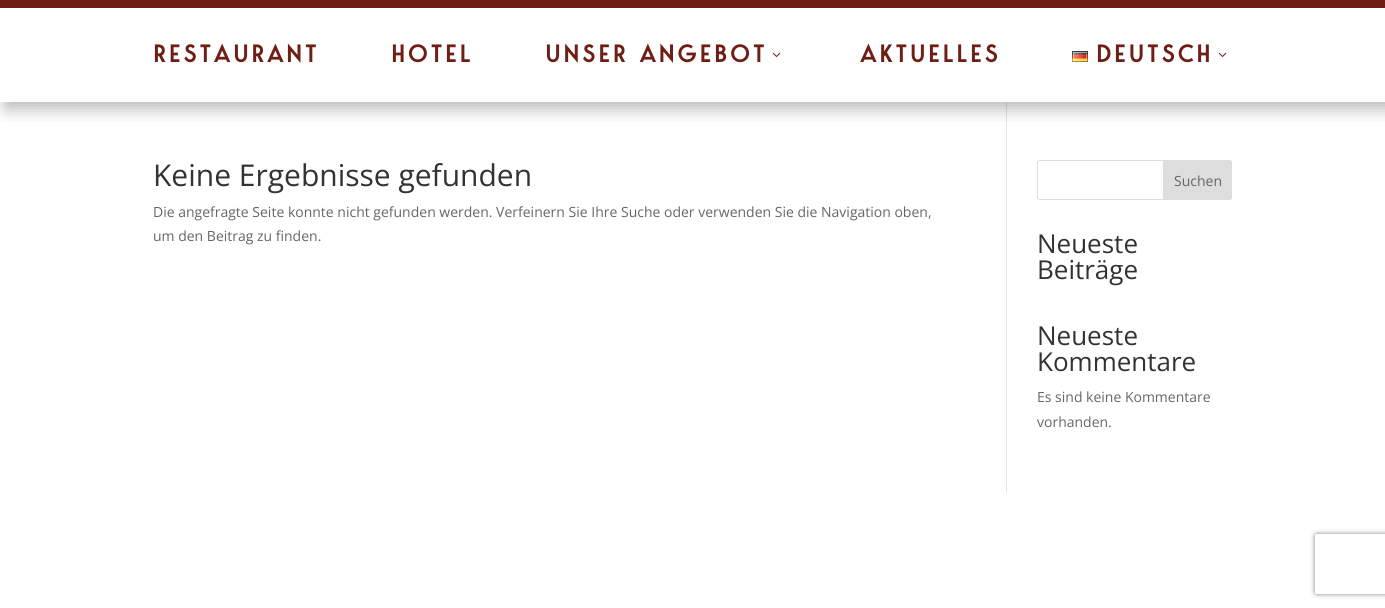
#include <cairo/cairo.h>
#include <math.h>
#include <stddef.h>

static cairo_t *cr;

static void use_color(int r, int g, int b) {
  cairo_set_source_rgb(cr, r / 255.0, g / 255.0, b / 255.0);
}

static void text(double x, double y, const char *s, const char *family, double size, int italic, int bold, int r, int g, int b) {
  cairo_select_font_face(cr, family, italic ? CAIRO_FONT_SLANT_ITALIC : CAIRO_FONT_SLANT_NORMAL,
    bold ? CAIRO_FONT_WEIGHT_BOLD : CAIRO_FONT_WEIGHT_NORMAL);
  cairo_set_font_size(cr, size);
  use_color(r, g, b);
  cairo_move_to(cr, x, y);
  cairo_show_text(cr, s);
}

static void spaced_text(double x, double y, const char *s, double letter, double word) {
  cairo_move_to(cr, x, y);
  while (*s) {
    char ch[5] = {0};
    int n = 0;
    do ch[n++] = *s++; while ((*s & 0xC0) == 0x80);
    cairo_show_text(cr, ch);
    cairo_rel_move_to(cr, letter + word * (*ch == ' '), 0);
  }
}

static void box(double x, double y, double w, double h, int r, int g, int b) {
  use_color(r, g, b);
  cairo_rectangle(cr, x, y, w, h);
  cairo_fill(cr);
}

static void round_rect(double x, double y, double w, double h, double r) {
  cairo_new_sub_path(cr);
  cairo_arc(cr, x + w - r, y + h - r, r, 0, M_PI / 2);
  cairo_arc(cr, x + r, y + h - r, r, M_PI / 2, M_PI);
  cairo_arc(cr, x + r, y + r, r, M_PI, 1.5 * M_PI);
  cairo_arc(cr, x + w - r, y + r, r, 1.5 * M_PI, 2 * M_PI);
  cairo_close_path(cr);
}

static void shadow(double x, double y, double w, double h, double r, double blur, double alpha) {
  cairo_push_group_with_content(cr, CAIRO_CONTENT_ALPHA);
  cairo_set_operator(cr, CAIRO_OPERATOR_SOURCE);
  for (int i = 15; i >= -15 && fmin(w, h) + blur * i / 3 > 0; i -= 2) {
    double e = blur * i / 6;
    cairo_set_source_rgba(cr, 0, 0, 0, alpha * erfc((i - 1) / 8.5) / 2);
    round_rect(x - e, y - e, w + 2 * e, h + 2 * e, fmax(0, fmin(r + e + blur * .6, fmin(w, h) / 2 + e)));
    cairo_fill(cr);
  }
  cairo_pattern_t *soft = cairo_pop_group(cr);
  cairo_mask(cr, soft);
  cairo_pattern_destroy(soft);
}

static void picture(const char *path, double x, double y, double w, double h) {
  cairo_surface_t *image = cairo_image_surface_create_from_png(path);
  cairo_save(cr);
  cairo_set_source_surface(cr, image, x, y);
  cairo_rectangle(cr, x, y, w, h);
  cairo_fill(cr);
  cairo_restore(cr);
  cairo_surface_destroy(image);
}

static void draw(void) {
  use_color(255, 255, 255);
  cairo_paint(cr);
  box(1006, 102, 1, 390, 226, 226, 226);
  cairo_save(cr);
  cairo_rectangle(cr, 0, 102, 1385, 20);
  cairo_clip(cr);
  use_color(0, 0, 0);
  shadow(6, 6, 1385, 102, 0, 9, 0.3);
  cairo_restore(cr);
  box(0, 0, 1385, 8, 110, 30, 21);
  picture("img_01.png", 772, 52, 9, 5);
  picture("img_02.png", 1072, 51, 16, 11);
  picture("img_01.png", 1218, 52, 9, 5);
  round_rect(1037.5, 160.5, 194, 39, 2.5);
  use_color(221, 221, 221);
  cairo_set_line_width(cr, 1);
  cairo_stroke(cr);
  cairo_new_path(cr);
  cairo_move_to(cr, 1163.5, 160.5);
  cairo_line_to(cr, 1229, 160.5);
  cairo_curve_to(cr, 1230.5, 160.5, 1231.5, 161.5, 1231.5, 163);
  cairo_line_to(cr, 1231.5, 197);
  cairo_curve_to(cr, 1231.5, 198.5, 1230.5, 199.5, 1229, 199.5);
  cairo_line_to(cr, 1163.5, 199.5);
  cairo_close_path(cr);
  cairo_fill_preserve(cr);
  cairo_stroke(cr);
  cairo_save(cr);
  cairo_set_fill_rule(cr, CAIRO_FILL_RULE_EVEN_ODD);
  cairo_new_path(cr);
  cairo_move_to(cr, 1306, 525);
  cairo_line_to(cr, 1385, 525);
  cairo_line_to(cr, 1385, 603);
  cairo_line_to(cr, 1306, 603);
  cairo_close_path(cr);
  cairo_move_to(cr, 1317, 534);
  cairo_line_to(cr, 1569, 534);
  cairo_curve_to(cr, 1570, 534, 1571, 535, 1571, 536);
  cairo_line_to(cr, 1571, 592);
  cairo_curve_to(cr, 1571, 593, 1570, 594, 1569, 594);
  cairo_line_to(cr, 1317, 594);
  cairo_curve_to(cr, 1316, 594, 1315, 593, 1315, 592);
  cairo_line_to(cr, 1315, 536);
  cairo_curve_to(cr, 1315, 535, 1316, 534, 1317, 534);
  cairo_close_path(cr);
  cairo_clip(cr);
  use_color(128, 128, 128);
  shadow(1315, 534, 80, 60, 2, 2.5, 1);
  cairo_restore(cr);
  cairo_select_font_face(cr, "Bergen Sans", CAIRO_FONT_SLANT_NORMAL, CAIRO_FONT_WEIGHT_BOLD);
  cairo_set_font_size(cr, 24);
  use_color(110, 30, 21);
  spaced_text(153, 62, "RESTAURANT", 3, 0);
  spaced_text(391, 62, "HOTEL", 3, 0);
  spaced_text(545, 62, "UNSER ANGEBOT", 3, 0);
  spaced_text(860, 62, "AKTUELLES", 3, 0);
  spaced_text(1096, 62, "DEUTSCH", 3, 0);
  text(153, 186, "Keine Ergebnisse gefunden", "Open Sans", 30, 0, 0, 51, 51, 51);
  text(153, 217, "Die angefragte Seite konnte nicht gefunden werden. Verfeinern Sie Ihre Suche oder verwenden Sie die Navigation oben,", "Open Sans", 14, 0, 0, 102, 102, 102);
  text(153, 241, "um den Beitrag zu finden.", "Open Sans", 14, 0, 0, 102, 102, 102);
  text(1174, 186, "Suchen", "Open Sans", 14, 0, 0, 102, 102, 102);
  text(1037, 253, "Neueste", "Open Sans", 26, 0, 0, 51, 51, 51);
  text(1037, 279, "Beiträge", "Open Sans", 26, 0, 0, 51, 51, 51);
  text(1037, 345, "Neueste", "Open Sans", 26, 0, 0, 51, 51, 51);
  text(1037, 371, "Kommentare", "Open Sans", 26, 0, 0, 51, 51, 51);
  text(1037, 402, "Es sind keine Kommentare", "Open Sans", 14, 0, 0, 102, 102, 102);
  text(1037, 427, "vorhanden.", "Open Sans", 14, 0, 0, 102, 102, 102);
}

int main(void) {
  cairo_surface_t *surface = cairo_image_surface_create(CAIRO_FORMAT_RGB24, 1385, 608);
  cr = cairo_create(surface);
  cairo_font_options_t *options = cairo_font_options_create();
  cairo_font_options_set_hint_metrics(options, CAIRO_HINT_METRICS_OFF);
  cairo_font_options_set_hint_style(options, CAIRO_HINT_STYLE_NONE);
  cairo_set_font_options(cr, options);
  cairo_set_miter_limit(cr, 4);
  draw();
  cairo_surface_write_to_png(surface, "out.png");
  cairo_font_options_destroy(options);
  cairo_destroy(cr);
  cairo_surface_destroy(surface);
  return 0;
}
